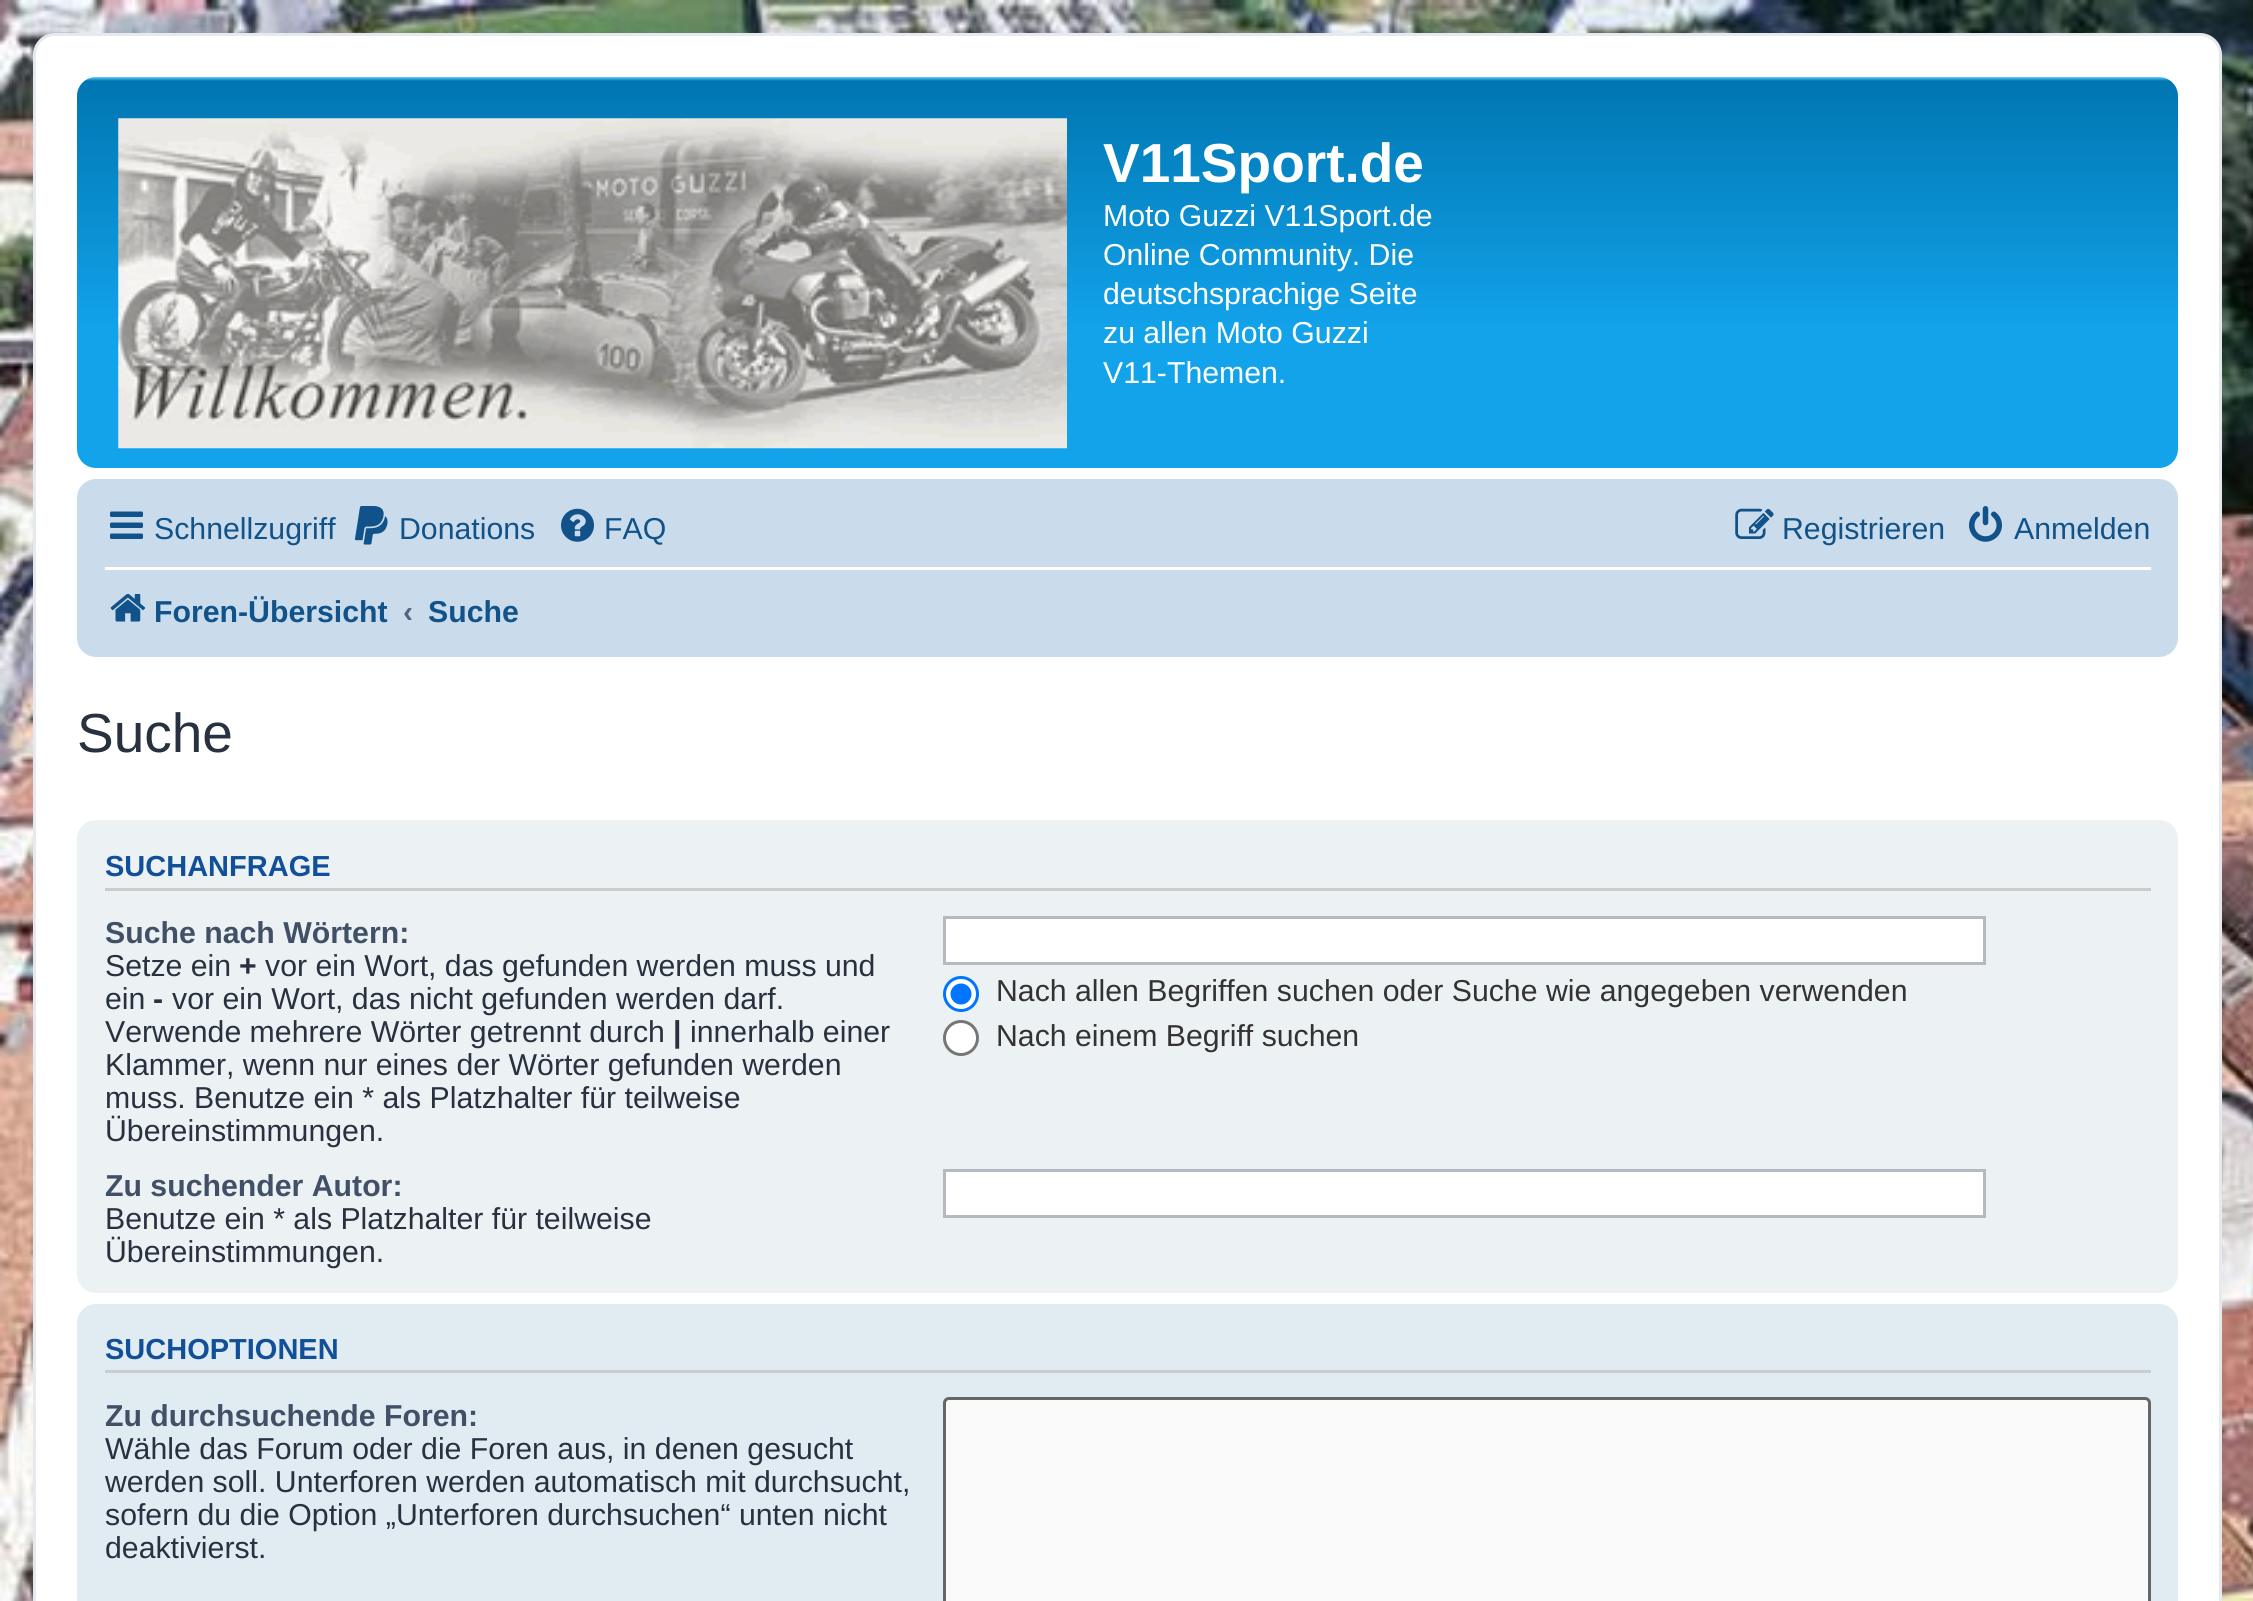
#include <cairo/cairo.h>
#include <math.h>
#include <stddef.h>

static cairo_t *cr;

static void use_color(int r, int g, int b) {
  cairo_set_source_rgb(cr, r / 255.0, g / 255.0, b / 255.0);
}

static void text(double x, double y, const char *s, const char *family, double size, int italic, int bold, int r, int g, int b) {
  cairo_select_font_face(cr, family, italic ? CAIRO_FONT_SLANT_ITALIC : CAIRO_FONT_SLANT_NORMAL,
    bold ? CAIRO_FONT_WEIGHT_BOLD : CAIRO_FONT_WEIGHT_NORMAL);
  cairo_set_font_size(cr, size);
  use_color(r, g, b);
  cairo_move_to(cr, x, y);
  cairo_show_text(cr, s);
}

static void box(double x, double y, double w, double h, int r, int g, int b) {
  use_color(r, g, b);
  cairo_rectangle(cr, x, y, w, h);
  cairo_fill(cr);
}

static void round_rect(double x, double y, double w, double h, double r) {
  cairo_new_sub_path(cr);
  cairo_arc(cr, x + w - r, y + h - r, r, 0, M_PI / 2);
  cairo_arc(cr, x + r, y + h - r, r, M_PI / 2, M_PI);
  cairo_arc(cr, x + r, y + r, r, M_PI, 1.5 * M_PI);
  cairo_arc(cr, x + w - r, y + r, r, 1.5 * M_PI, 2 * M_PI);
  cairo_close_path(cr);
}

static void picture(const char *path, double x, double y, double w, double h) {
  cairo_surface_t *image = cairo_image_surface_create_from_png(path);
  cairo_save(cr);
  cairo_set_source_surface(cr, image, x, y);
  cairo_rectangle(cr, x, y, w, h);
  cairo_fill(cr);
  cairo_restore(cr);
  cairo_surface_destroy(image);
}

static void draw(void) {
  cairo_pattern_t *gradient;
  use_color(255, 255, 255);
  cairo_paint(cr);
  picture("img_01.png", 0, 0, 2253, 1601);
  use_color(255, 255, 255);
  round_rect(34.5, 34.5, 2186, 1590, 20.5);
  cairo_fill_preserve(cr);
  use_color(230, 233, 237);
  cairo_set_line_width(cr, 3);
  cairo_stroke(cr);
  gradient = cairo_pattern_create_linear(1128, 77, 1128, 468);
  cairo_pattern_add_color_stop_rgba(gradient, 0, 0.416, 0.808, 1, 1);
  cairo_pattern_add_color_stop_rgba(gradient, 0.01, 0, 0.463, 0.694, 1);
  cairo_pattern_add_color_stop_rgba(gradient, 0.65, 0.071, 0.639, 0.922, 1);
  cairo_pattern_add_color_stop_rgba(gradient, 1, 0.071, 0.639, 0.922, 1);
  cairo_set_source(cr, gradient);
  cairo_pattern_destroy(gradient);
  round_rect(77, 77, 2101, 391, 19);
  cairo_fill(cr);
  picture("img_02.png", 118, 118, 949, 331);
  use_color(202, 220, 235);
  round_rect(77, 479, 2101, 178, 19);
  cairo_fill(cr);
  picture("img_03.png", 110, 511, 33, 28);
  picture("img_04.png", 354, 506, 34, 39);
  picture("img_05.png", 561, 508, 33, 34);
  picture("img_06.png", 1735, 508, 39, 31);
  picture("img_07.png", 1969, 506, 33, 36);
  box(105, 567, 2046, 3, 255, 255, 255);
  picture("img_08.png", 110, 594, 36, 28);
  use_color(236, 241, 243);
  round_rect(77, 820, 2101, 473, 19);
  cairo_fill(cr);
  box(105, 888, 2046, 3, 204, 204, 204);
  use_color(255, 255, 255);
  cairo_rectangle(cr, 944.5, 917.5, 1040, 46);
  cairo_fill_preserve(cr);
  use_color(180, 186, 192);
  cairo_stroke(cr);
  use_color(255, 255, 255);
  cairo_arc(cr, 961, 994, 16.5, 0, 2 * M_PI);
  cairo_fill_preserve(cr);
  use_color(0, 117, 255);
  cairo_stroke(cr);
  cairo_arc(cr, 961, 994, 10.5, 0, 2 * M_PI);
  cairo_fill(cr);
  use_color(255, 255, 255);
  cairo_arc(cr, 961, 1038, 16.5, 0, 2 * M_PI);
  cairo_fill_preserve(cr);
  use_color(118, 118, 118);
  cairo_stroke(cr);
  use_color(255, 255, 255);
  cairo_rectangle(cr, 944.5, 1170.5, 1040, 46);
  cairo_fill_preserve(cr);
  use_color(180, 186, 192);
  cairo_stroke(cr);
  use_color(225, 235, 242);
  round_rect(77, 1304, 2101, 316, 19);
  cairo_fill(cr);
  box(105, 1370, 2046, 3, 204, 204, 204);
  use_color(250, 250, 250);
  round_rect(944.5, 1398.5, 1205, 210, 4.5);
  cairo_fill_preserve(cr);
  use_color(102, 102, 102);
  cairo_stroke(cr);
  text(1103, 182, "V11Sport.de", "Liberation Sans", 55, 0, 1, 255, 255, 255);
  text(1103, 226, "Moto Guzzi V11Sport.de", "Liberation Sans", 30.25, 0, 0, 255, 255, 255);
  text(1103, 265, "Online Community. Die", "Liberation Sans", 30.25, 0, 0, 255, 255, 255);
  text(1103, 304, "deutschsprachige Seite", "Liberation Sans", 30.25, 0, 0, 255, 255, 255);
  text(1103, 343, "zu allen Moto Guzzi", "Liberation Sans", 30.25, 0, 0, 255, 255, 255);
  text(1103, 383, "V11-Themen.", "Liberation Sans", 30.25, 0, 0, 255, 255, 255);
  text(154, 539, "Schnellzugriff", "Liberation Sans", 30.25, 0, 0, 16, 82, 137);
  text(399, 539, "Donations", "Liberation Sans", 30.25, 0, 0, 16, 82, 137);
  text(604, 539, "FAQ", "Liberation Sans", 30.25, 0, 0, 16, 82, 137);
  text(1782, 539, "Registrieren", "Liberation Sans", 30.25, 0, 0, 16, 82, 137);
  text(2014, 539, "Anmelden", "Liberation Sans", 30.25, 0, 0, 16, 82, 137);
  text(154, 622, "Foren-Übersicht", "Liberation Sans", 30.25, 0, 1, 16, 82, 137);
  text(403, 622, "‹", "Liberation Sans", 30.25, 0, 1, 83, 100, 130);
  text(428, 622, "Suche", "Liberation Sans", 30.25, 0, 1, 16, 82, 137);
  text(77, 752, "Suche", "Liberation Sans", 55, 0, 0, 40, 49, 63);
  text(105, 876, "SUCHANFRAGE", "Liberation Sans", 29, 0, 1, 17, 80, 152);
  text(105, 943, "Suche nach Wörtern:", "Liberation Sans", 30.25, 0, 1, 66, 80, 103);
  text(105, 976, "Setze ein", "Liberation Sans", 30.25, 0, 0, 40, 49, 63);
  text(239, 976, "+", "Liberation Sans", 30.25, 0, 1, 40, 49, 63);
  text(265, 976, "vor ein Wort, das gefunden werden muss und", "Liberation Sans", 30.25, 0, 0, 40, 49, 63);
  text(105, 1009, "ein", "Liberation Sans", 30.25, 0, 0, 40, 49, 63);
  text(153, 1009, "-", "Liberation Sans", 30.25, 0, 1, 40, 49, 63);
  text(172, 1009, "vor ein Wort, das nicht gefunden werden darf.", "Liberation Sans", 30.25, 0, 0, 40, 49, 63);
  text(105, 1042, "Verwende mehrere Wörter getrennt durch", "Liberation Sans", 30.25, 0, 0, 40, 49, 63);
  text(673, 1042, "|", "Liberation Sans", 30.25, 0, 1, 40, 49, 63);
  text(690, 1042, "innerhalb einer", "Liberation Sans", 30.25, 0, 0, 40, 49, 63);
  text(105, 1075, "Klammer, wenn nur eines der Wörter gefunden werden", "Liberation Sans", 30.25, 0, 0, 40, 49, 63);
  text(105, 1108, "muss. Benutze ein * als Platzhalter für teilweise", "Liberation Sans", 30.25, 0, 0, 40, 49, 63);
  text(105, 1141, "Übereinstimmungen.", "Liberation Sans", 30.25, 0, 0, 40, 49, 63);
  text(996, 1001, "Nach allen Begriffen suchen oder Suche wie angegeben verwenden", "Liberation Sans", 30.25, 0, 0, 51, 51, 51);
  text(996, 1046, "Nach einem Begriff suchen", "Liberation Sans", 30.25, 0, 0, 51, 51, 51);
  text(105, 1196, "Zu suchender Autor:", "Liberation Sans", 30.25, 0, 1, 66, 80, 103);
  text(105, 1229, "Benutze ein * als Platzhalter für teilweise", "Liberation Sans", 30.25, 0, 0, 40, 49, 63);
  text(105, 1262, "Übereinstimmungen.", "Liberation Sans", 30.25, 0, 0, 40, 49, 63);
  text(105, 1359, "SUCHOPTIONEN", "Liberation Sans", 29, 0, 1, 17, 80, 152);
  text(105, 1426, "Zu durchsuchende Foren:", "Liberation Sans", 30.25, 0, 1, 66, 80, 103);
  text(105, 1459, "Wähle das Forum oder die Foren aus, in denen gesucht", "Liberation Sans", 30.25, 0, 0, 40, 49, 63);
  text(105, 1492, "werden soll. Unterforen werden automatisch mit durchsucht,", "Liberation Sans", 30.25, 0, 0, 40, 49, 63);
  text(105, 1525, "sofern du die Option „Unterforen durchsuchen“ unten nicht", "Liberation Sans", 30.25, 0, 0, 40, 49, 63);
  text(105, 1558, "deaktivierst.", "Liberation Sans", 30.25, 0, 0, 40, 49, 63);
}

int main(void) {
  cairo_surface_t *surface = cairo_image_surface_create(CAIRO_FORMAT_RGB24, 2253, 1601);
  cr = cairo_create(surface);
  cairo_font_options_t *options = cairo_font_options_create();
  cairo_font_options_set_hint_metrics(options, CAIRO_HINT_METRICS_OFF);
  cairo_font_options_set_hint_style(options, CAIRO_HINT_STYLE_NONE);
  cairo_set_font_options(cr, options);
  cairo_set_miter_limit(cr, 4);
  draw();
  cairo_surface_write_to_png(surface, "out.png");
  cairo_font_options_destroy(options);
  cairo_destroy(cr);
  cairo_surface_destroy(surface);
  return 0;
}
